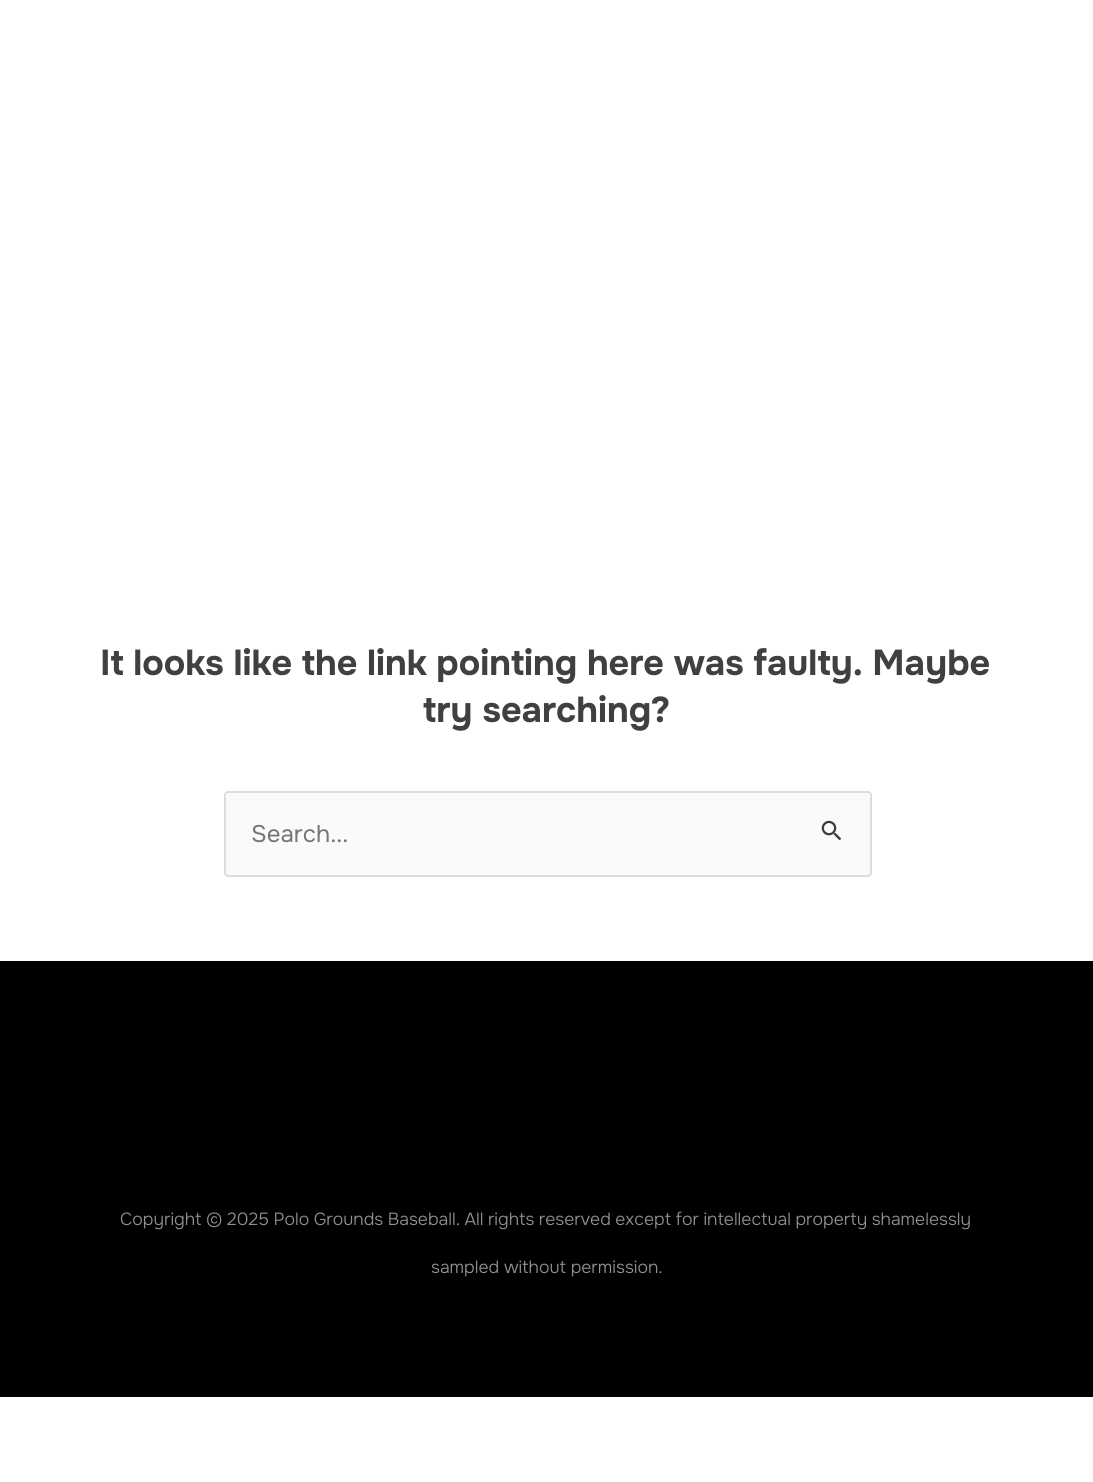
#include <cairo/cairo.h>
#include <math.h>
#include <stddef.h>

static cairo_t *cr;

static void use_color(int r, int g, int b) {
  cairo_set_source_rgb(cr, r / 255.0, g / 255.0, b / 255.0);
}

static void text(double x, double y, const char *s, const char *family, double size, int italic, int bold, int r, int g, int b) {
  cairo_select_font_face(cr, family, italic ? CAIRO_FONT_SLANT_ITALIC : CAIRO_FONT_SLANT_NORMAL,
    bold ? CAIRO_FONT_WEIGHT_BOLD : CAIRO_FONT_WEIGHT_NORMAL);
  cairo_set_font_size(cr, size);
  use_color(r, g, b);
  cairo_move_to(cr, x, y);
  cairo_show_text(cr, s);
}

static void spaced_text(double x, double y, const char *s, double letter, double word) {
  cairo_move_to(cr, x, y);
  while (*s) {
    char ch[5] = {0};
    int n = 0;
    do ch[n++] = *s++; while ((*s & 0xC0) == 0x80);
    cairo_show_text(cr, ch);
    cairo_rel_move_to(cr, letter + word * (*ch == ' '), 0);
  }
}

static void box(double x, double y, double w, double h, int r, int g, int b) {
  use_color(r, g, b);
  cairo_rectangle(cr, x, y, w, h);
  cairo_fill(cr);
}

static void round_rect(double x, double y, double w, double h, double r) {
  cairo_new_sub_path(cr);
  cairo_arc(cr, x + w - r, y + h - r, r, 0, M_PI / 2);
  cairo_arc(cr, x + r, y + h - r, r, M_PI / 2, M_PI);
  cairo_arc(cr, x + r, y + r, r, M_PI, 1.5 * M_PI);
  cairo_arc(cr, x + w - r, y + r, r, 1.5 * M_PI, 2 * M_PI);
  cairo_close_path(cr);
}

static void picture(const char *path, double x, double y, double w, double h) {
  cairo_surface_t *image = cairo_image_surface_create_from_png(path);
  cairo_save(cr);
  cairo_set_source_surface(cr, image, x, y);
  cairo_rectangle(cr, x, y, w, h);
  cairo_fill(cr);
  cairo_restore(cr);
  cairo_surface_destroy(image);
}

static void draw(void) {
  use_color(255, 255, 255);
  cairo_paint(cr);
  use_color(250, 250, 250);
  round_rect(225, 792, 646, 84, 3);
  cairo_fill_preserve(cr);
  use_color(221, 221, 221);
  cairo_stroke(cr);
  picture("img_01.png", 821, 820, 21, 21);
  box(0, 961, 1093, 436, 0, 0, 0);
  cairo_select_font_face(cr, "Onest", CAIRO_FONT_SLANT_NORMAL, CAIRO_FONT_WEIGHT_BOLD);
  cairo_set_font_size(cr, 35.9);
  use_color(64, 64, 64);
  spaced_text(100, 675, "It looks like the link pointing here was faulty. Maybe", 0, -0.5);
  text(423, 722, "try searching?", "Onest", 35.9, 0, 1, 64, 64, 64);
  text(251, 842, "Search...", "Onest", 24, 0, 0, 117, 117, 117);
  cairo_select_font_face(cr, "Onest Light", CAIRO_FONT_SLANT_NORMAL, CAIRO_FONT_WEIGHT_NORMAL);
  cairo_set_font_size(cr, 17.55);
  use_color(145, 145, 145);
  spaced_text(120, 1225, "Copyright © 2025 Polo Grounds Baseball. All rights reserved except for intellectual property shamelessly", 0, -0.25);
  text(431, 1273, "sampled without permission.", "Onest Light", 17.55, 0, 0, 145, 145, 145);
}

int main(void) {
  cairo_surface_t *surface = cairo_image_surface_create(CAIRO_FORMAT_RGB24, 1093, 1482);
  cr = cairo_create(surface);
  cairo_font_options_t *options = cairo_font_options_create();
  cairo_font_options_set_hint_metrics(options, CAIRO_HINT_METRICS_OFF);
  cairo_font_options_set_hint_style(options, CAIRO_HINT_STYLE_NONE);
  cairo_set_font_options(cr, options);
  cairo_set_miter_limit(cr, 4);
  draw();
  cairo_surface_write_to_png(surface, "out.png");
  cairo_font_options_destroy(options);
  cairo_destroy(cr);
  cairo_surface_destroy(surface);
  return 0;
}
